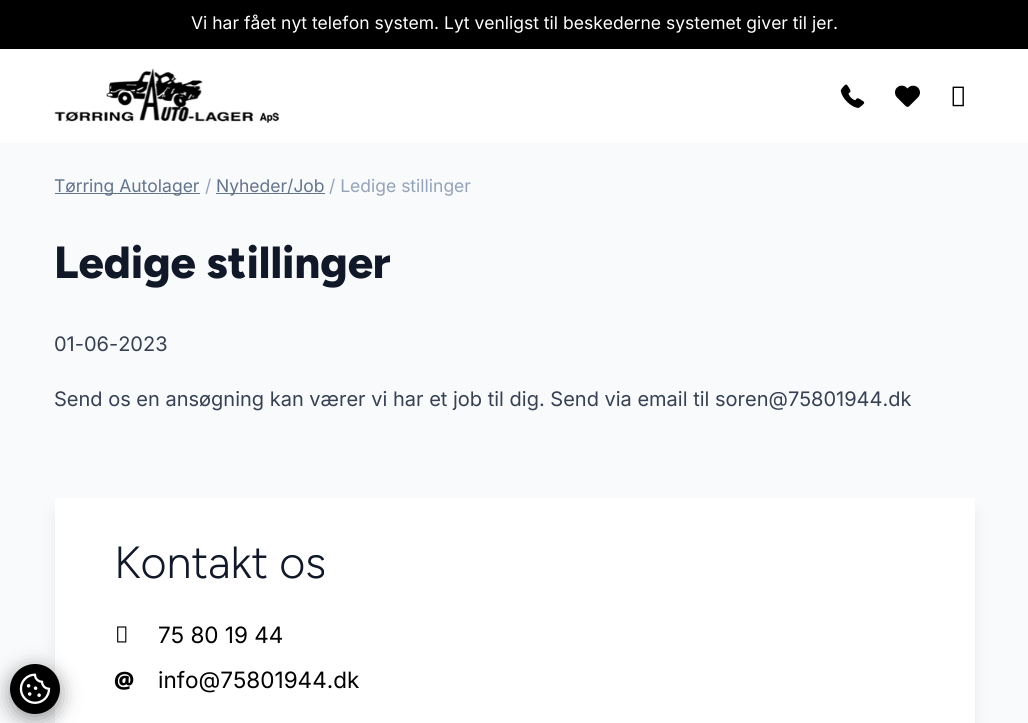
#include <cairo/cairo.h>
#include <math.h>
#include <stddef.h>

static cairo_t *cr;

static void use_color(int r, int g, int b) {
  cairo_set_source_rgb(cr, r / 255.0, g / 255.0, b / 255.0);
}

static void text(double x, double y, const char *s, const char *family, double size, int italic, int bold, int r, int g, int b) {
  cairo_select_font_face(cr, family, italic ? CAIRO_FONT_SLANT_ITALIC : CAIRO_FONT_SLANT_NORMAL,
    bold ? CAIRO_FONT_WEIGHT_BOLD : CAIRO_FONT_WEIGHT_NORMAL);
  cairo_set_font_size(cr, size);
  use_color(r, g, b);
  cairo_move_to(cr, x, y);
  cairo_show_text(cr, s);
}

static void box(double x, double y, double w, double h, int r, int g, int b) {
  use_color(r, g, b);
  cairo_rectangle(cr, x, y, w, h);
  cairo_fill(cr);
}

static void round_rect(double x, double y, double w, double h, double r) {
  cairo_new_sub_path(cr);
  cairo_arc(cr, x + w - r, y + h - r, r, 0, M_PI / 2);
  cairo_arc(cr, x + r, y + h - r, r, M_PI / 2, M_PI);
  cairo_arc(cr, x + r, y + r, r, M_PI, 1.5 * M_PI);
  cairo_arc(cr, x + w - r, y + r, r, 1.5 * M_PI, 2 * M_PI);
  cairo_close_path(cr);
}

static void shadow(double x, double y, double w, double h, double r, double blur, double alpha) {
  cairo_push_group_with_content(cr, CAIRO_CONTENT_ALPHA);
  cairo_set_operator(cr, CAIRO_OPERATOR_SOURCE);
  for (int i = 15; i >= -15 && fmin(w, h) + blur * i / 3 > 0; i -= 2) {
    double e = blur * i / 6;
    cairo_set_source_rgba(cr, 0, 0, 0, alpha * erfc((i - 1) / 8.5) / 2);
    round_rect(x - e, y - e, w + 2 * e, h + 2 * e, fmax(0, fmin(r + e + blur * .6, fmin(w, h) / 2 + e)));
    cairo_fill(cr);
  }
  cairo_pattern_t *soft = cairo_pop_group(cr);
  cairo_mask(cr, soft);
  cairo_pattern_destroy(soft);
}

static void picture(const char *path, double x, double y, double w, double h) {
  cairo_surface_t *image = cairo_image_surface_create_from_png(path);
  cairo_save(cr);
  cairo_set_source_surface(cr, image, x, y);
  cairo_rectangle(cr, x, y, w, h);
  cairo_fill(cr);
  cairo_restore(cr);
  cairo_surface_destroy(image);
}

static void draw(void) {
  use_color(248, 250, 252);
  cairo_paint(cr);
  box(0, 0, 1028, 49, 0, 0, 0);
  box(0, 49, 1028, 94, 255, 255, 255);
  picture("img_01.png", 54, 68, 225, 55);
  picture("img_02.png", 840, 84, 25, 24);
  picture("img_03.png", 895, 85, 25, 22);
  picture("img_04.png", 952, 86, 12, 21);
  use_color(0, 0, 0);
  shadow(59, 514, 912, 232, 0, 9.5, 0.1);
  box(55, 498, 920, 225, 255, 255, 255);
  use_color(0, 0, 0);
  shadow(10, 669, 50, 50, 25, 10, 0.4);
  use_color(0, 0, 0);
  cairo_arc(cr, 35, 689, 25, 0, 2 * M_PI);
  cairo_fill(cr);
  picture("img_05.png", 19, 673, 32, 31);
  box(55, 193, 145, 1, 100, 116, 139);
  box(216, 193, 109, 1, 100, 116, 139);
  picture("img_06.png", 117, 626, 10, 17);
  text(191, 29, "Vi har fået nyt telefon system. Lyt venligst til beskederne systemet giver til jer.", "Inter", 17.5, 0, 0, 255, 255, 255);
  text(54, 192, "Tørring Autolager", "Inter", 17.5, 0, 0, 100, 116, 139);
  text(205, 192, "/", "Inter", 17.5, 0, 0, 148, 163, 184);
  text(216, 192, "Nyheder/Job", "Inter", 17.5, 0, 0, 100, 116, 139);
  text(329, 192, "/ Ledige stillinger", "Inter", 17.5, 0, 0, 148, 163, 184);
  text(54, 278, "Ledige stillinger", "Figtree ExtraBold", 45, 0, 0, 17, 24, 39);
  text(54, 351, "01-06-2023", "Inter", 20, 0, 0, 55, 65, 81);
  text(54, 406, "Send os en ansøgning kan værer vi har et job til dig. Send via email til soren@75801944.dk", "Inter", 20, 0, 0, 55, 65, 81);
  text(114, 578, "Kontakt os", "Figtree Light", 45, 0, 0, 17, 24, 39);
  text(158, 643, "75 80 19 44", "Inter", 22.5, 0, 0, 0, 0, 0);
  text(114, 688, "@", "Noto Sans Black", 22.5, 0, 0, 0, 0, 0);
  text(158, 688, "info@75801944.dk", "Inter", 22.5, 0, 0, 0, 0, 0);
}

int main(void) {
  cairo_surface_t *surface = cairo_image_surface_create(CAIRO_FORMAT_RGB24, 1028, 723);
  cr = cairo_create(surface);
  cairo_font_options_t *options = cairo_font_options_create();
  cairo_font_options_set_hint_metrics(options, CAIRO_HINT_METRICS_OFF);
  cairo_font_options_set_hint_style(options, CAIRO_HINT_STYLE_NONE);
  cairo_set_font_options(cr, options);
  cairo_set_miter_limit(cr, 4);
  draw();
  cairo_surface_write_to_png(surface, "out.png");
  cairo_font_options_destroy(options);
  cairo_destroy(cr);
  cairo_surface_destroy(surface);
  return 0;
}
